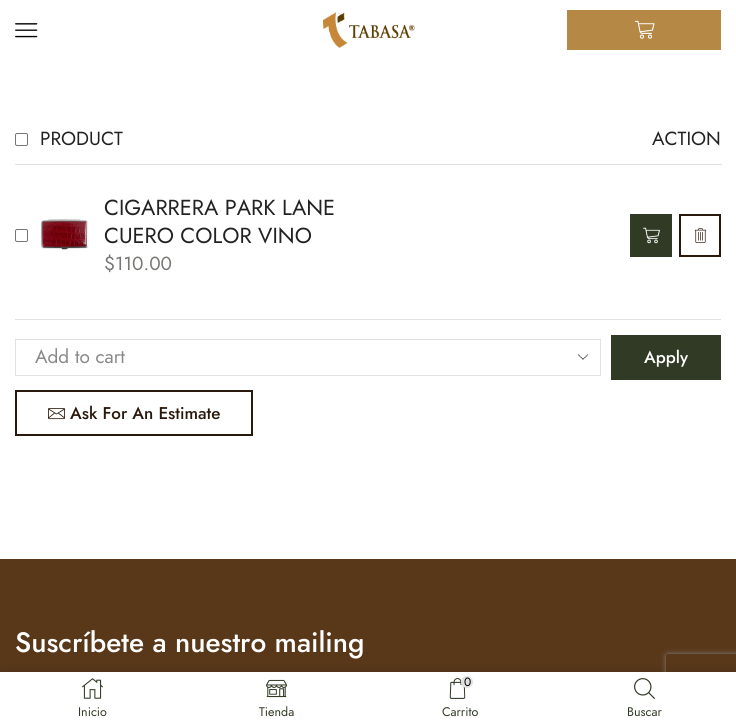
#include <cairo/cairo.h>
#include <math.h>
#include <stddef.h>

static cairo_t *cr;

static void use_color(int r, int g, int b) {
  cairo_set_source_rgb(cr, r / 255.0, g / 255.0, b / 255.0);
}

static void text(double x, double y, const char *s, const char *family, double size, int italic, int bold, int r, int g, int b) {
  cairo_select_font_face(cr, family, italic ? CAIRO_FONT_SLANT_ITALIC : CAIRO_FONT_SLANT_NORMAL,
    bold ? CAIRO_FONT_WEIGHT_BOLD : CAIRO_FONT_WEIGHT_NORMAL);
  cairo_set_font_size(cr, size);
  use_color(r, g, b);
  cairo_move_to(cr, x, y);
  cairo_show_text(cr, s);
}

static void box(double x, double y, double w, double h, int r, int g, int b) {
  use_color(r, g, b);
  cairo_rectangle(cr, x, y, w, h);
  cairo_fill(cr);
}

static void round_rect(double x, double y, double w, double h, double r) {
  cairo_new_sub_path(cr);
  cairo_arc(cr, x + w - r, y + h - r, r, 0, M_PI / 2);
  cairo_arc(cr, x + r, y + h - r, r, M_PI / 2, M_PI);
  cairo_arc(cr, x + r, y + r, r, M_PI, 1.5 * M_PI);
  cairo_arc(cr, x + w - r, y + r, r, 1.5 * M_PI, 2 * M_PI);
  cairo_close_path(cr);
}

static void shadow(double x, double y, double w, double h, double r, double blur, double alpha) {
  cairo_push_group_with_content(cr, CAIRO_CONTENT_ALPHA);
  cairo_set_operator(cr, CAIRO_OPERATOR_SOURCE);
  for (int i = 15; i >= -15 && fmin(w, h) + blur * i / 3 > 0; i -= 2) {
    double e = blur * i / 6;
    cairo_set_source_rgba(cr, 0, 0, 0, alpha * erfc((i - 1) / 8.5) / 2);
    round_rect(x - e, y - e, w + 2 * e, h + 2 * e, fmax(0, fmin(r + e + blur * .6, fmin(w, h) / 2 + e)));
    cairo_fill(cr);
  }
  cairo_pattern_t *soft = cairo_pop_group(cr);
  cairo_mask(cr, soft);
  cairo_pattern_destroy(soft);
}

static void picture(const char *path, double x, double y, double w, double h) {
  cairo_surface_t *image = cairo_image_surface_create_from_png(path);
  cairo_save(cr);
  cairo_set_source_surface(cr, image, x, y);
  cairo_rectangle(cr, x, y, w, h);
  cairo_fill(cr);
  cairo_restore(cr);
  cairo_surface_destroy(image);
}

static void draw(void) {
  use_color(255, 255, 255);
  cairo_paint(cr);
  picture("img_01.png", 15, 23, 23, 15);
  picture("img_02.png", 323, 12, 92, 36);
  box(567, 10, 154, 40, 182, 136, 69);
  picture("img_03.png", 635, 20, 20, 19);
  box(15, 164, 707, 1, 225, 225, 225);
  round_rect(15.5, 133.5, 12, 12, 1.5);
  use_color(118, 118, 118);
  cairo_set_line_width(cr, 1);
  cairo_stroke(cr);
  round_rect(15.5, 229.5, 12, 12, 1.5);
  cairo_stroke(cr);
  picture("img_04.png", 40, 219, 49, 31);
  box(630, 214, 42, 43, 48, 58, 36);
  picture("img_05.png", 643, 227, 17, 17);
  cairo_rectangle(cr, 680, 215, 40, 41);
  use_color(42, 24, 13);
  cairo_set_line_width(cr, 2);
  cairo_stroke(cr);
  picture("img_06.png", 694, 228, 13, 15);
  box(15, 319, 706, 1, 225, 225, 225);
  picture("img_07.png", 578, 354, 10, 6);
  cairo_rectangle(cr, 15.5, 339.5, 585, 36);
  cairo_set_line_width(cr, 1);
  cairo_stroke(cr);
  box(611, 335, 110, 45, 48, 58, 36);
  cairo_rectangle(cr, 16, 391, 236, 44);
  use_color(42, 24, 13);
  cairo_set_line_width(cr, 2);
  cairo_stroke(cr);
  picture("img_08.png", 48, 408, 17, 12);
  box(0, 559, 736, 113, 89, 56, 26);
  use_color(0, 0, 0);
  shadow(2, 672, 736, 56, 0, 6, 0.15);
  cairo_save(cr);
  cairo_set_fill_rule(cr, CAIRO_FILL_RULE_EVEN_ODD);
  cairo_new_path(cr);
  cairo_move_to(cr, 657, 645);
  cairo_line_to(cr, 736, 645);
  cairo_line_to(cr, 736, 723);
  cairo_line_to(cr, 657, 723);
  cairo_close_path(cr);
  cairo_move_to(cr, 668, 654);
  cairo_line_to(cr, 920, 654);
  cairo_curve_to(cr, 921, 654, 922, 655, 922, 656);
  cairo_line_to(cr, 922, 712);
  cairo_curve_to(cr, 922, 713, 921, 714, 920, 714);
  cairo_line_to(cr, 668, 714);
  cairo_curve_to(cr, 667, 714, 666, 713, 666, 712);
  cairo_line_to(cr, 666, 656);
  cairo_curve_to(cr, 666, 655, 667, 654, 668, 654);
  cairo_close_path(cr);
  cairo_clip(cr);
  use_color(128, 128, 128);
  shadow(666, 654, 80, 60, 2, 2.5, 1);
  cairo_restore(cr);
  box(0, 672, 736, 56, 255, 255, 255);
  picture("img_09.png", 82, 678, 21, 21);
  picture("img_10.png", 266, 679, 21, 19);
  picture("img_11.png", 449, 678, 17, 21);
  use_color(225, 225, 225);
  cairo_arc(cr, 467, 682, 6, 0, 2 * M_PI);
  cairo_fill(cr);
  picture("img_12.png", 634, 678, 21, 21);
  text(40, 145, "PRODUCT", "Jost", 19, 0, 0, 34, 34, 34);
  text(652, 145, "ACTION", "Jost", 19, 0, 0, 34, 34, 34);
  text(104, 215, "CIGARRERA PARK LANE", "Jost", 21.75, 0, 0, 34, 34, 34);
  text(104, 243, "CUERO COLOR VINO", "Jost", 21.75, 0, 0, 34, 34, 34);
  text(104, 270, "$110.00", "Jost", 19, 0, 0, 118, 120, 116);
  text(35, 363, "Add to cart", "Jost", 19, 0, 0, 136, 136, 136);
  text(644, 363, "Apply", "Jost Medium", 17, 0, 0, 255, 255, 255);
  text(70, 419, "Ask For An Estimate", "Jost Medium", 17, 0, 0, 42, 24, 13);
  text(15, 652, "Suscríbete a nuestro mailing", "Jost Medium", 28, 0, 0, 255, 255, 255);
  text(78, 716, "Inicio", "Jost", 12.5, 0, 0, 48, 58, 36);
  text(259, 716, "Tienda", "Jost", 12.5, 0, 0, 48, 58, 36);
  text(464, 686, "0", "Jost", 12, 0, 0, 0, 0, 0);
  text(442, 716, "Carrito", "Jost", 12.5, 0, 0, 48, 58, 36);
  text(627, 716, "Buscar", "Jost", 12.5, 0, 0, 48, 58, 36);
}

int main(void) {
  cairo_surface_t *surface = cairo_image_surface_create(CAIRO_FORMAT_RGB24, 736, 728);
  cr = cairo_create(surface);
  cairo_font_options_t *options = cairo_font_options_create();
  cairo_font_options_set_hint_metrics(options, CAIRO_HINT_METRICS_OFF);
  cairo_font_options_set_hint_style(options, CAIRO_HINT_STYLE_NONE);
  cairo_set_font_options(cr, options);
  cairo_set_miter_limit(cr, 4);
  draw();
  cairo_surface_write_to_png(surface, "out.png");
  cairo_font_options_destroy(options);
  cairo_destroy(cr);
  cairo_surface_destroy(surface);
  return 0;
}
